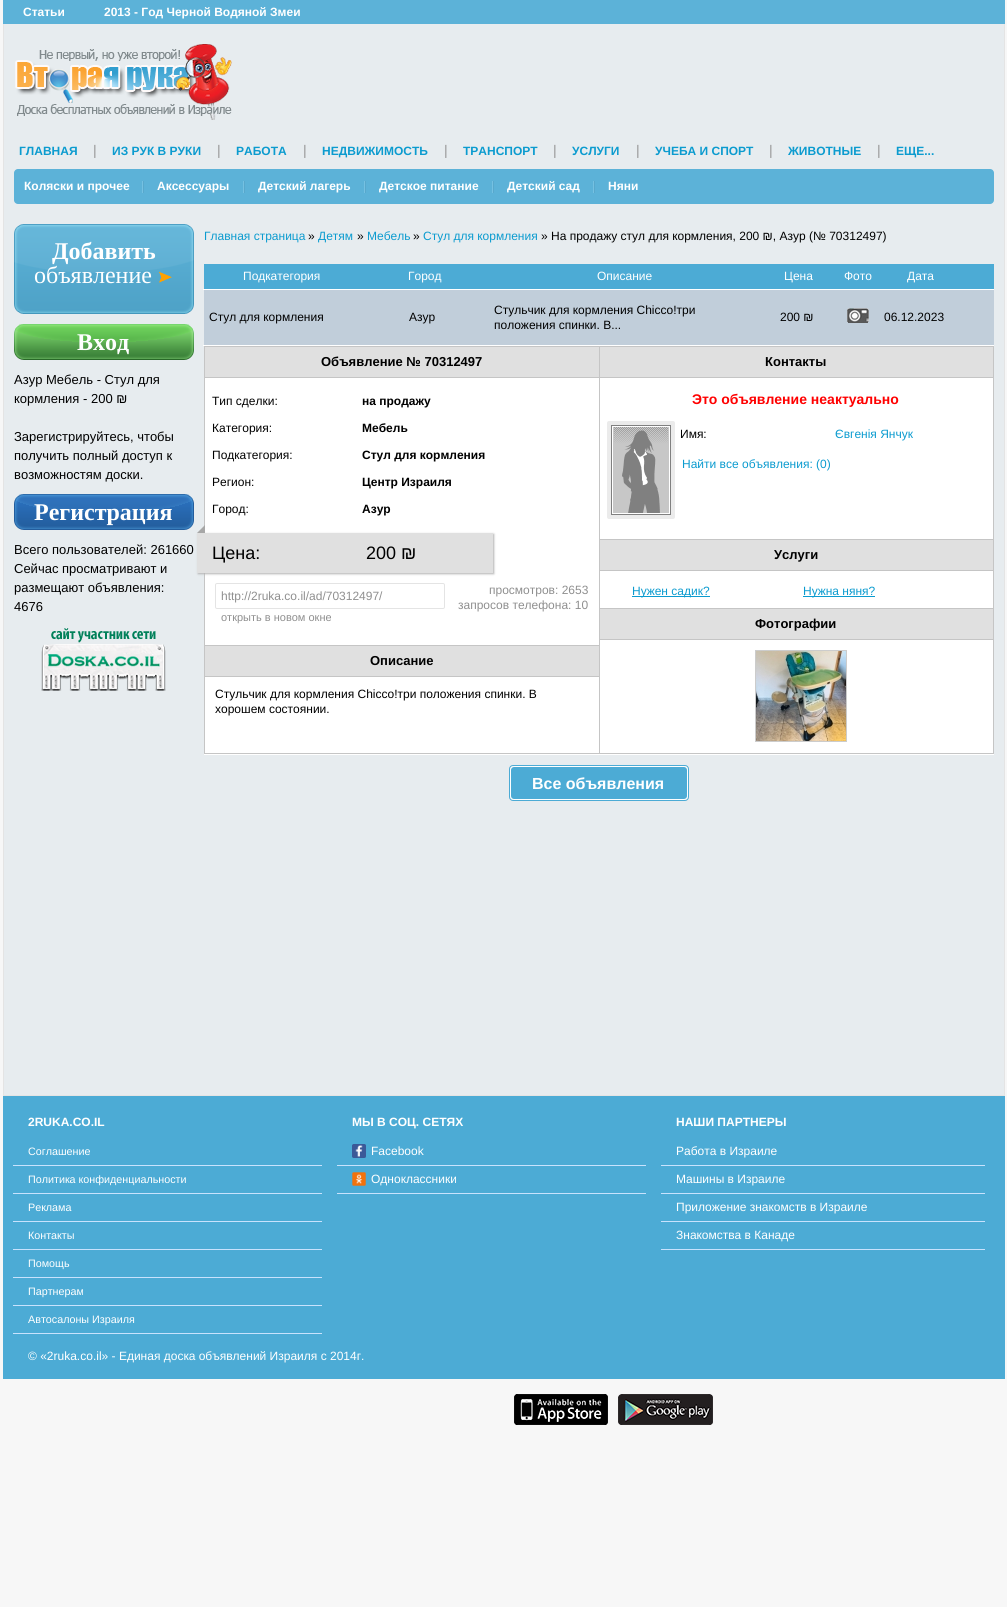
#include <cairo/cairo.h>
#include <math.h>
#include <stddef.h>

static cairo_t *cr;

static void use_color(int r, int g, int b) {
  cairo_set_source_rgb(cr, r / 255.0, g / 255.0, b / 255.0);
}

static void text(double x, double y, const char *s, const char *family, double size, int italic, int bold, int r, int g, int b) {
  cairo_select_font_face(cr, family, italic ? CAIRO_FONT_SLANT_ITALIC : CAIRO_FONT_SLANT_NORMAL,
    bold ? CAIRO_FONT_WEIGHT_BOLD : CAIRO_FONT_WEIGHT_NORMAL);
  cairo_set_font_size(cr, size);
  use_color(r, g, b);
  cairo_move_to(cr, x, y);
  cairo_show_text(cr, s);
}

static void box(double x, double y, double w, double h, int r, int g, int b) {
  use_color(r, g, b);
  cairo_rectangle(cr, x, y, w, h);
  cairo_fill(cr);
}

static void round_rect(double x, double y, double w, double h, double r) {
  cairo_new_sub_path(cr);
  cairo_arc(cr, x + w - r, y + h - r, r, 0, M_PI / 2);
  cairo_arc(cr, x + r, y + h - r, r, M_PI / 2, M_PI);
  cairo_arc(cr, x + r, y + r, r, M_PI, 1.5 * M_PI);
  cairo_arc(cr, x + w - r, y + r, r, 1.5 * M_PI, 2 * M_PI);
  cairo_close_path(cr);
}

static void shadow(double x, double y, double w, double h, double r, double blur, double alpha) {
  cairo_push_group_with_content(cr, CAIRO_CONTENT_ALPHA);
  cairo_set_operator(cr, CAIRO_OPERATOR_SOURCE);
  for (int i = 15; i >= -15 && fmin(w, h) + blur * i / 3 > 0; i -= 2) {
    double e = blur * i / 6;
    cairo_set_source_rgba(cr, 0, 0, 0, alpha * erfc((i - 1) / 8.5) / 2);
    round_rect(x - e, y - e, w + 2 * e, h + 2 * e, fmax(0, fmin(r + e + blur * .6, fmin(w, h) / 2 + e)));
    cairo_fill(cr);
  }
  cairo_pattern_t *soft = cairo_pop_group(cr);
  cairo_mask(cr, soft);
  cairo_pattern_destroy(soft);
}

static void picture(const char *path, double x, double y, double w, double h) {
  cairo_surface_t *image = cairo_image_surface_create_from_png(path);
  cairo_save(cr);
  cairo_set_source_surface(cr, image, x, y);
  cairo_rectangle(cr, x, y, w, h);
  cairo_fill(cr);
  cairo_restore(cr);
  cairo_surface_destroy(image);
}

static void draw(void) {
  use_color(247, 247, 247);
  cairo_paint(cr);
  box(3, 0, 1002, 24, 92, 178, 216);
  box(4, 24, 1000, 1071, 231, 236, 239);
  picture("img_01.png", 15, 44, 217, 76);
  box(1004, 24, 1, 1072, 228, 228, 228);
  box(3, 24, 1, 190, 228, 228, 228);
  use_color(92, 178, 216);
  round_rect(14, 169, 980, 35, 4);
  cairo_fill(cr);
  box(143, 181, 1, 12, 88, 168, 204);
  box(142, 181, 1, 12, 117, 193, 226);
  box(244, 181, 1, 12, 88, 168, 204);
  box(243, 181, 1, 12, 117, 193, 226);
  box(365, 181, 1, 12, 88, 168, 204);
  box(364, 181, 1, 12, 117, 193, 226);
  box(493, 181, 1, 12, 88, 168, 204);
  box(492, 181, 1, 12, 117, 193, 226);
  box(594, 181, 1, 12, 88, 168, 204);
  box(593, 181, 1, 12, 117, 193, 226);
  box(3, 1095, 1002, 1, 228, 228, 228);
  box(3, 214, 1, 882, 228, 228, 228);
  picture("img_02.png", 14, 224, 180, 90);
  picture("img_03.png", 159, 271, 13, 12);
  picture("img_04.png", 14, 324, 180, 36);
  picture("img_05.png", 14, 494, 180, 36);
  picture("img_06.png", 41, 628, 125, 63);
  box(203, 289, 791, 1, 255, 255, 255);
  box(204, 264, 790, 25, 76, 171, 213);
  box(203, 345, 791, 1, 255, 255, 255);
  box(204, 290, 790, 55, 193, 206, 218);
  picture("img_07.png", 847, 308, 22, 15);
  box(204, 378, 790, 377, 255, 255, 255);
  box(993, 346, 1, 408, 197, 197, 197);
  box(599, 753, 395, 1, 197, 197, 197);
  box(599, 346, 1, 408, 197, 197, 197);
  box(204, 753, 396, 1, 197, 197, 197);
  box(204, 346, 1, 408, 197, 197, 197);
  box(205, 347, 394, 30, 224, 224, 224);
  box(205, 346, 394, 1, 197, 197, 197);
  box(205, 377, 394, 1, 197, 197, 197);
  use_color(179, 179, 179);
  shadow(198, 534, 296, 40, 0, 1, 1);
  box(197, 533, 296, 40, 224, 224, 224);
  use_color(167, 167, 167);
  cairo_new_path(cr);
  cairo_move_to(cr, 205, 533);
  cairo_line_to(cr, 197, 533);
  cairo_line_to(cr, 205, 525);
  cairo_close_path(cr);
  cairo_fill(cr);
  round_rect(215.5, 583.5, 229, 25, 1.5);
  use_color(228, 228, 228);
  cairo_set_line_width(cr, 1);
  cairo_stroke(cr);
  box(205, 646, 394, 30, 224, 224, 224);
  box(205, 645, 394, 1, 197, 197, 197);
  box(205, 676, 394, 1, 197, 197, 197);
  box(600, 347, 393, 30, 224, 224, 224);
  box(600, 346, 393, 1, 197, 197, 197);
  box(600, 377, 393, 1, 197, 197, 197);
  use_color(235, 235, 235);
  round_rect(607, 421, 68, 98, 2);
  cairo_fill(cr);
  picture("img_08.png", 611, 425, 60, 90);
  box(600, 540, 393, 30, 224, 224, 224);
  box(600, 539, 393, 1, 197, 197, 197);
  box(600, 570, 393, 1, 197, 197, 197);
  box(632, 596, 78, 1, 11, 155, 207);
  box(803, 596, 72, 1, 11, 155, 207);
  box(600, 609, 393, 30, 224, 224, 224);
  box(600, 608, 393, 1, 197, 197, 197);
  box(600, 639, 393, 1, 197, 197, 197);
  cairo_rectangle(cr, 755.5, 650.5, 91, 91);
  use_color(204, 204, 204);
  cairo_stroke(cr);
  picture("img_09.png", 756, 651, 90, 90);
  round_rect(509.5, 765.5, 179, 35, 3.5);
  use_color(76, 171, 213);
  cairo_stroke(cr);
  round_rect(510.5, 766.5, 177, 33, 3.5);
  cairo_fill_preserve(cr);
  use_color(255, 255, 255);
  cairo_stroke(cr);
  box(3, 1096, 1002, 283, 76, 171, 213);
  box(13, 1165, 309, 1, 200, 226, 253);
  box(13, 1193, 309, 1, 200, 226, 253);
  box(13, 1221, 309, 1, 200, 226, 253);
  box(13, 1249, 309, 1, 200, 226, 253);
  box(13, 1277, 309, 1, 200, 226, 253);
  box(13, 1305, 309, 1, 200, 226, 253);
  box(13, 1333, 309, 1, 200, 226, 253);
  box(337, 1165, 309, 1, 200, 226, 253);
  picture("img_10.png", 352, 1144, 14, 14);
  box(337, 1193, 309, 1, 200, 226, 253);
  picture("img_11.png", 352, 1172, 14, 14);
  box(661, 1165, 324, 1, 200, 226, 253);
  box(661, 1193, 324, 1, 200, 226, 253);
  box(661, 1221, 324, 1, 200, 226, 253);
  box(661, 1249, 324, 1, 200, 226, 253);
  picture("img_12.png", 514, 1394, 94, 31);
  picture("img_13.png", 618, 1394, 95, 31);
  text(23, 16, "Статьи", "Liberation Sans", 12, 0, 1, 255, 255, 255);
  text(104, 16, "2013 - Год Черной Водяной Змеи", "Liberation Sans", 12, 0, 1, 255, 255, 255);
  text(19, 155, "ГЛАВНАЯ", "Liberation Sans", 12, 0, 1, 11, 155, 207);
  text(93, 155, "|", "Liberation Sans", 14, 0, 0, 151, 151, 151);
  text(112, 155, "ИЗ РУК В РУКИ", "Liberation Sans", 12, 0, 1, 11, 155, 207);
  text(217, 155, "|", "Liberation Sans", 14, 0, 0, 151, 151, 151);
  text(236, 155, "РАБОТА", "Liberation Sans", 12, 0, 1, 11, 155, 207);
  text(303, 155, "|", "Liberation Sans", 14, 0, 0, 151, 151, 151);
  text(322, 155, "НЕДВИЖИМОСТЬ", "Liberation Sans", 12, 0, 1, 11, 155, 207);
  text(444, 155, "|", "Liberation Sans", 14, 0, 0, 151, 151, 151);
  text(463, 155, "ТРАНСПОРТ", "Liberation Sans", 12, 0, 1, 11, 155, 207);
  text(553, 155, "|", "Liberation Sans", 14, 0, 0, 151, 151, 151);
  text(572, 155, "УСЛУГИ", "Liberation Sans", 12, 0, 1, 11, 155, 207);
  text(636, 155, "|", "Liberation Sans", 14, 0, 0, 151, 151, 151);
  text(655, 155, "УЧЕБА И СПОРТ", "Liberation Sans", 12, 0, 1, 11, 155, 207);
  text(769, 155, "|", "Liberation Sans", 14, 0, 0, 151, 151, 151);
  text(788, 155, "ЖИВОТНЫЕ", "Liberation Sans", 12, 0, 1, 11, 155, 207);
  text(877, 155, "|", "Liberation Sans", 14, 0, 0, 151, 151, 151);
  text(896, 155, "ЕЩЕ...", "Liberation Sans", 12, 0, 1, 11, 155, 207);
  text(24, 190, "Коляски и прочее", "Liberation Sans", 12, 0, 1, 255, 255, 255);
  text(157, 190, "Аксессуары", "Liberation Sans", 12, 0, 1, 255, 255, 255);
  text(258, 190, "Детский лагерь", "Liberation Sans", 12, 0, 1, 255, 255, 255);
  text(379, 190, "Детское питание", "Liberation Sans", 12, 0, 1, 255, 255, 255);
  text(507, 190, "Детский сад", "Liberation Sans", 12, 0, 1, 255, 255, 255);
  text(608, 190, "Няни", "Liberation Sans", 12, 0, 1, 255, 255, 255);
  text(52, 259, "Добавить", "Liberation Serif", 24, 0, 1, 255, 255, 255);
  text(34, 283, "объявление", "Liberation Serif", 24, 0, 0, 255, 255, 255);
  text(77, 350, "Вход", "Liberation Serif", 24, 0, 1, 255, 255, 255);
  text(14, 384, "Азур Мебель - Стул для", "Liberation Sans", 13, 0, 0, 0, 0, 0);
  text(14, 403, "кормления - 200 ₪", "Liberation Sans", 13, 0, 0, 0, 0, 0);
  text(14, 441, "Зарегистрируйтесь, чтобы", "Liberation Sans", 13, 0, 0, 0, 0, 0);
  text(14, 460, "получить полный доступ к", "Liberation Sans", 13, 0, 0, 0, 0, 0);
  text(14, 479, "возможностям доски.", "Liberation Sans", 13, 0, 0, 0, 0, 0);
  text(34, 520, "Регистрация", "Liberation Serif", 24, 0, 1, 255, 255, 255);
  text(14, 554, "Всего пользователей: 261660", "Liberation Sans", 13, 0, 0, 0, 0, 0);
  text(14, 573, "Сейчас просматривают и", "Liberation Sans", 13, 0, 0, 0, 0, 0);
  text(14, 592, "размещают объявления:", "Liberation Sans", 13, 0, 0, 0, 0, 0);
  text(14, 611, "4676", "Liberation Sans", 13, 0, 0, 0, 0, 0);
  text(204, 240, "Главная страница", "Liberation Sans", 12, 0, 0, 11, 155, 207);
  text(308, 240, "»", "Liberation Sans", 12, 0, 0, 0, 0, 0);
  text(318, 240, "Детям", "Liberation Sans", 12, 0, 0, 11, 155, 207);
  text(357, 240, "»", "Liberation Sans", 12, 0, 0, 0, 0, 0);
  text(367, 240, "Мебель", "Liberation Sans", 12, 0, 0, 11, 155, 207);
  text(413, 240, "»", "Liberation Sans", 12, 0, 0, 0, 0, 0);
  text(423, 240, "Стул для кормления", "Liberation Sans", 12, 0, 0, 11, 155, 207);
  text(541, 240, "» На продажу стул для кормления, 200 ₪, Азур (№ 70312497)", "Liberation Sans", 12, 0, 0, 0, 0, 0);
  text(243, 280, "Подкатегория", "Liberation Sans", 12, 0, 0, 255, 255, 255);
  text(408, 280, "Город", "Liberation Sans", 12, 0, 0, 255, 255, 255);
  text(597, 280, "Описание", "Liberation Sans", 12, 0, 0, 255, 255, 255);
  text(784, 280, "Цена", "Liberation Sans", 12, 0, 0, 255, 255, 255);
  text(844, 280, "Фото", "Liberation Sans", 12, 0, 0, 255, 255, 255);
  text(907, 280, "Дата", "Liberation Sans", 12, 0, 0, 255, 255, 255);
  text(209, 321, "Стул для кормления", "Liberation Sans", 12, 0, 0, 0, 0, 0);
  text(409, 321, "Азур", "Liberation Sans", 12, 0, 0, 0, 0, 0);
  text(494, 314, "Стульчик для кормления Chicco!три", "Liberation Sans", 12, 0, 0, 0, 0, 0);
  text(494, 329, "положения спинки. В...", "Liberation Sans", 12, 0, 0, 0, 0, 0);
  text(780, 321, "200 ₪", "Liberation Sans", 12, 0, 0, 0, 0, 0);
  text(884, 321, "06.12.2023", "Liberation Sans", 12, 0, 0, 0, 0, 0);
  text(321, 366, "Объявление № 70312497", "Liberation Sans", 13, 0, 1, 0, 0, 0);
  text(212, 405, "Тип сделки:", "Liberation Sans", 12, 0, 0, 0, 0, 0);
  text(362, 405, "на продажу", "Liberation Sans", 12, 0, 1, 0, 0, 0);
  text(212, 432, "Категория:", "Liberation Sans", 12, 0, 0, 0, 0, 0);
  text(362, 432, "Мебель", "Liberation Sans", 12, 0, 1, 0, 0, 0);
  text(212, 459, "Подкатегория:", "Liberation Sans", 12, 0, 0, 0, 0, 0);
  text(362, 459, "Стул для кормления", "Liberation Sans", 12, 0, 1, 0, 0, 0);
  text(212, 486, "Регион:", "Liberation Sans", 12, 0, 0, 0, 0, 0);
  text(362, 486, "Центр Израиля", "Liberation Sans", 12, 0, 1, 0, 0, 0);
  text(212, 513, "Город:", "Liberation Sans", 12, 0, 0, 0, 0, 0);
  text(362, 513, "Азур", "Liberation Sans", 12, 0, 1, 0, 0, 0);
  text(212, 559, "Цена:", "Liberation Sans", 18, 0, 0, 0, 0, 0);
  text(366, 559, "200 ₪", "Liberation Sans", 18, 0, 0, 0, 0, 0);
  text(221, 600, "http://2ruka.co.il/ad/70312497/", "Liberation Sans", 12, 0, 0, 143, 143, 143);
  text(221, 621, "открыть в новом окне", "Liberation Sans", 11, 0, 0, 143, 143, 143);
  text(489, 594, "просмотров: 2653", "Liberation Sans", 12, 0, 0, 143, 143, 143);
  text(458, 609, "запросов телефона: 10", "Liberation Sans", 12, 0, 0, 143, 143, 143);
  text(370, 665, "Описание", "Liberation Sans", 13, 0, 1, 0, 0, 0);
  text(215, 698, "Стульчик для кормления Chicco!три положения спинки. В", "Liberation Sans", 12, 0, 0, 0, 0, 0);
  text(215, 713, "хорошем состоянии.", "Liberation Sans", 12, 0, 0, 0, 0, 0);
  text(765, 366, "Контакты", "Liberation Sans", 13, 0, 1, 0, 0, 0);
  text(692, 404, "Это объявление неактуально", "Liberation Sans", 14, 0, 1, 255, 0, 0);
  text(680, 438, "Имя:", "Liberation Sans", 12, 0, 0, 0, 0, 0);
  text(835, 438, "Євгенія Янчук", "Liberation Sans", 12, 0, 0, 11, 155, 207);
  text(682, 468, "Найти все объявления: (0)", "Liberation Sans", 12, 0, 0, 11, 155, 207);
  text(774, 559, "Услуги", "Liberation Sans", 13, 0, 1, 0, 0, 0);
  text(632, 595, "Нужен садик?", "Liberation Sans", 12, 0, 0, 11, 155, 207);
  text(803, 595, "Нужна няня?", "Liberation Sans", 12, 0, 0, 11, 155, 207);
  text(755, 628, "Фотографии", "Liberation Sans", 13, 0, 1, 0, 0, 0);
  text(532, 789, "Все объявления", "Liberation Sans", 16, 0, 1, 255, 255, 255);
  text(28, 1126, "2RUKA.CO.IL", "Liberation Sans", 12, 0, 1, 255, 255, 255);
  text(352, 1126, "МЫ В СОЦ. СЕТЯХ", "Liberation Sans", 12, 0, 1, 255, 255, 255);
  text(676, 1126, "НАШИ ПАРТНЕРЫ", "Liberation Sans", 12, 0, 1, 255, 255, 255);
  text(28, 1155, "Соглашение", "Liberation Sans", 10.75, 0, 0, 255, 255, 255);
  text(28, 1183, "Политика конфиденциальности", "Liberation Sans", 10.75, 0, 0, 255, 255, 255);
  text(28, 1211, "Реклама", "Liberation Sans", 10.75, 0, 0, 255, 255, 255);
  text(28, 1239, "Контакты", "Liberation Sans", 10.75, 0, 0, 255, 255, 255);
  text(28, 1267, "Помощь", "Liberation Sans", 10.75, 0, 0, 255, 255, 255);
  text(28, 1295, "Партнерам", "Liberation Sans", 10.75, 0, 0, 255, 255, 255);
  text(28, 1323, "Автосалоны Израиля", "Liberation Sans", 10.75, 0, 0, 255, 255, 255);
  text(371, 1155, "Facebook", "Liberation Sans", 12, 0, 0, 255, 255, 255);
  text(371, 1183, "Одноклассники", "Liberation Sans", 12, 0, 0, 255, 255, 255);
  text(676, 1155, "Работа в Израиле", "Liberation Sans", 12, 0, 0, 255, 255, 255);
  text(676, 1183, "Машины в Израиле", "Liberation Sans", 12, 0, 0, 255, 255, 255);
  text(676, 1211, "Приложение знакомств в Израиле", "Liberation Sans", 12, 0, 0, 255, 255, 255);
  text(676, 1239, "Знакомства в Канаде", "Liberation Sans", 12, 0, 0, 255, 255, 255);
  text(28, 1360, "© «2ruka.co.il» - Единая доска объявлений Израиля с 2014г.", "Liberation Sans", 12, 0, 0, 255, 255, 255);
}

int main(void) {
  cairo_surface_t *surface = cairo_image_surface_create(CAIRO_FORMAT_RGB24, 1007, 1607);
  cr = cairo_create(surface);
  cairo_font_options_t *options = cairo_font_options_create();
  cairo_font_options_set_hint_metrics(options, CAIRO_HINT_METRICS_OFF);
  cairo_font_options_set_hint_style(options, CAIRO_HINT_STYLE_NONE);
  cairo_set_font_options(cr, options);
  cairo_set_miter_limit(cr, 4);
  draw();
  cairo_surface_write_to_png(surface, "out.png");
  cairo_font_options_destroy(options);
  cairo_destroy(cr);
  cairo_surface_destroy(surface);
  return 0;
}
